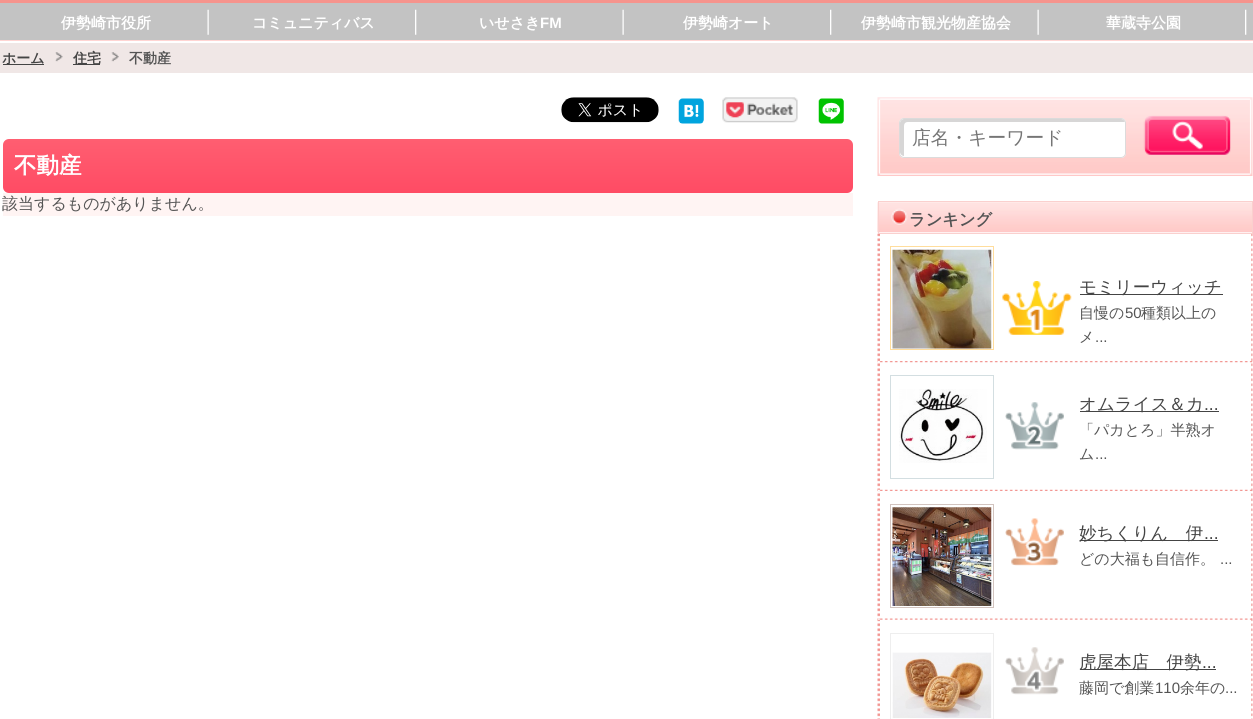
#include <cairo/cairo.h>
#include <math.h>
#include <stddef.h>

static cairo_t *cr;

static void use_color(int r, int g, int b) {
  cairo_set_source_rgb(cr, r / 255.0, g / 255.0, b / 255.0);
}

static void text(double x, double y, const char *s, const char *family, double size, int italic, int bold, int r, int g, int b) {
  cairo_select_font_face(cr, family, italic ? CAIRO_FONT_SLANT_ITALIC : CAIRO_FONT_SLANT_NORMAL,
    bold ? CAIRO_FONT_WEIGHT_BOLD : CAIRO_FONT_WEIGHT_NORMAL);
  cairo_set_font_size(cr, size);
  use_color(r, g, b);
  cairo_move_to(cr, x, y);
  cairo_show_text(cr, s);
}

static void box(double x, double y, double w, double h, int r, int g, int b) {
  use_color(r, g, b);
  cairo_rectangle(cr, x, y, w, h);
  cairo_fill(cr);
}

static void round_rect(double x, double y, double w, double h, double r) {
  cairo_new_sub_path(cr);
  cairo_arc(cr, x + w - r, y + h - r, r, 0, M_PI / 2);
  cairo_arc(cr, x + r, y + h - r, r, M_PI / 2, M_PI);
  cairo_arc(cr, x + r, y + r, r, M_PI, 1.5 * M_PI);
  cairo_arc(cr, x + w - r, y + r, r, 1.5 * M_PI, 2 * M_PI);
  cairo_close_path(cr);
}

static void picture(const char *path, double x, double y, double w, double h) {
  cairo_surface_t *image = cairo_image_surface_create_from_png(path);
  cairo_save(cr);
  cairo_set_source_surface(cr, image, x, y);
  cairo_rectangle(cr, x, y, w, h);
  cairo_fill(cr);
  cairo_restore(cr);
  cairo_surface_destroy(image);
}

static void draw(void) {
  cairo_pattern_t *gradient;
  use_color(255, 255, 255);
  cairo_paint(cr);
  box(0, 0, 1253, 3, 246, 148, 141);
  box(0, 3, 1253, 37, 195, 195, 195);
  box(0, 40, 1253, 1, 255, 213, 211);
  picture("img_01.png", 207, 9, 2, 26);
  picture("img_02.png", 415, 9, 2, 26);
  picture("img_01.png", 622, 9, 2, 26);
  picture("img_02.png", 830, 9, 2, 26);
  picture("img_01.png", 1037, 9, 2, 26);
  picture("img_02.png", 1245, 9, 2, 26);
  box(0, 43, 1253, 30, 240, 231, 230);
  picture("img_03.png", 55, 52, 8, 10);
  box(3, 64, 41, 1, 68, 68, 68);
  picture("img_04.png", 111, 52, 8, 10);
  box(73, 64, 27, 1, 68, 68, 68);
  picture("img_05.png", 561, 97, 98, 26);
  picture("img_06.png", 678, 98, 26, 26);
  picture("img_07.png", 722, 97, 76, 26);
  picture("img_08.png", 818, 98, 26, 26);
  gradient = cairo_pattern_create_linear(2.5, 139, 2.5, 193);
  cairo_pattern_add_color_stop_rgba(gradient, 0, 1, 0.369, 0.443, 1);
  cairo_pattern_add_color_stop_rgba(gradient, 1, 1, 0.294, 0.392, 1);
  cairo_set_source(cr, gradient);
  cairo_pattern_destroy(gradient);
  round_rect(3, 139, 850, 54, 6);
  cairo_fill(cr);
  box(3, 193, 850, 23, 255, 244, 243);
  picture("img_09.png", 877, 97, 376, 79);
  use_color(255, 255, 255);
  round_rect(899, 118, 227, 40, 5);
  cairo_fill(cr);
  use_color(215, 214, 214);
  cairo_new_path(cr);
  cairo_move_to(cr, 908, 122);
  cairo_line_to(cr, 1125, 122);
  cairo_curve_to(cr, 1124, 120, 1123, 119, 1121, 119);
  cairo_line_to(cr, 904, 119);
  cairo_curve_to(cr, 902, 119, 900, 121, 900, 123);
  cairo_line_to(cr, 900, 152);
  cairo_curve_to(cr, 900, 154, 902, 156, 904, 156);
  cairo_line_to(cr, 904, 126);
  cairo_curve_to(cr, 904, 124, 905, 122, 908, 122);
  cairo_close_path(cr);
  cairo_fill(cr);
  round_rect(899.5, 118.5, 226, 39, 4.5);
  use_color(220, 219, 219);
  cairo_set_line_width(cr, 1);
  cairo_stroke(cr);
  picture("img_10.png", 1143, 115, 88, 40);
  picture("img_11.png", 877, 202, 375, 31);
  cairo_rectangle(cr, 878.5, 201.5, 374, 32);
  use_color(250, 208, 206);
  cairo_stroke(cr);
  picture("img_12.png", 891, 208, 17, 17);
  picture("img_13.png", 877, 233, 3, 486);
  picture("img_14.png", 1251, 234, 2, 485);
  picture("img_15.png", 877, 361, 376, 2);
  cairo_rectangle(cr, 890.5, 246.5, 103, 103);
  use_color(255, 221, 157);
  cairo_stroke(cr);
  picture("img_16.png", 892, 249, 100, 100);
  picture("img_17.png", 1002, 281, 70, 54);
  box(1080, 294, 143, 1, 68, 68, 68);
  picture("img_18.png", 878, 489, 374, 2);
  cairo_rectangle(cr, 890.5, 375.5, 103, 103);
  use_color(211, 222, 225);
  cairo_stroke(cr);
  picture("img_19.png", 899, 389, 88, 74);
  picture("img_20.png", 1005, 402, 59, 48);
  box(1080, 411, 139, 1, 68, 68, 68);
  picture("img_21.png", 877, 618, 376, 2);
  cairo_rectangle(cr, 890.5, 504.5, 103, 103);
  use_color(210, 196, 191);
  cairo_stroke(cr);
  picture("img_22.png", 892, 507, 100, 99);
  picture("img_23.png", 1005, 518, 59, 48);
  box(1080, 540, 138, 1, 68, 68, 68);
  cairo_rectangle(cr, 890.5, 633.5, 103, 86);
  use_color(238, 238, 238);
  cairo_stroke(cr);
  picture("img_24.png", 892, 652, 100, 66);
  picture("img_25.png", 1005, 647, 59, 48);
  box(1080, 669, 136, 1, 68, 68, 68);
  text(61, 28, "伊勢崎市役所", "WenQuanYi Zen Hei", 15, 0, 1, 255, 255, 255);
  text(252, 28, "コミュニティバス", "WenQuanYi Zen Hei", 15, 0, 1, 255, 255, 255);
  text(479, 28, "いせさき", "WenQuanYi Zen Hei", 15, 0, 1, 255, 255, 255);
  text(540, 28, "FM", "Liberation Sans", 15, 0, 1, 255, 255, 255);
  text(683, 28, "伊勢崎オート", "WenQuanYi Zen Hei", 15, 0, 1, 255, 255, 255);
  text(861, 28, "伊勢崎市観光物産協会", "WenQuanYi Zen Hei", 15, 0, 1, 255, 255, 255);
  text(1106, 28, "華蔵寺公園", "WenQuanYi Zen Hei", 15, 0, 1, 255, 255, 255);
  text(2, 63, "ホーム", "WenQuanYi Zen Hei", 14, 0, 1, 68, 68, 68);
  text(73, 63, "住宅", "WenQuanYi Zen Hei", 14, 0, 1, 68, 68, 68);
  text(129, 63, "不動産", "WenQuanYi Zen Hei", 14, 0, 1, 84, 84, 84);
  text(14, 173, "不動産", "WenQuanYi Zen Hei", 22.5, 0, 1, 255, 255, 255);
  text(2, 209, "該当するものがありません。", "WenQuanYi Zen Hei Medium", 16, 0, 0, 84, 84, 84);
  text(912, 144, "店名・キーワード", "WenQuanYi Zen Hei Medium", 18.75, 0, 0, 117, 117, 117);
  text(909, 225, "ランキング", "WenQuanYi Zen Hei", 16.25, 0, 1, 84, 84, 84);
  text(1079, 293, "モミリーウィッチ", "WenQuanYi Zen Hei Medium", 17.5, 0, 0, 68, 68, 68);
  text(1079, 318, "自慢の", "WenQuanYi Zen Hei Medium", 15, 0, 0, 84, 84, 84);
  text(1125, 318, "50", "Liberation Sans", 15, 0, 0, 84, 84, 84);
  text(1141, 318, "種類以上の", "WenQuanYi Zen Hei Medium", 15, 0, 0, 84, 84, 84);
  text(1079, 342, "メ", "WenQuanYi Zen Hei Medium", 15, 0, 0, 84, 84, 84);
  text(1095, 342, "...", "Liberation Sans", 15, 0, 0, 84, 84, 84);
  text(1079, 410, "オムライス＆カ", "WenQuanYi Zen Hei Medium", 17.5, 0, 0, 68, 68, 68);
  text(1204, 410, "...", "Liberation Sans", 17.5, 0, 0, 68, 68, 68);
  text(1079, 435, "「パカとろ」半熟オ", "WenQuanYi Zen Hei Medium", 15, 0, 0, 84, 84, 84);
  text(1079, 459, "ム", "WenQuanYi Zen Hei Medium", 15, 0, 0, 84, 84, 84);
  text(1095, 459, "...", "Liberation Sans", 15, 0, 0, 84, 84, 84);
  text(1079, 539, "妙ちくりん　伊", "WenQuanYi Zen Hei Medium", 17.5, 0, 0, 68, 68, 68);
  text(1204, 539, "...", "Liberation Sans", 17.5, 0, 0, 68, 68, 68);
  text(1079, 564, "どの大福も自信作。", "WenQuanYi Zen Hei Medium", 15, 0, 0, 84, 84, 84);
  text(1220, 564, "...", "Liberation Sans", 15, 0, 0, 84, 84, 84);
  text(1079, 668, "虎屋本店　伊勢", "WenQuanYi Zen Hei Medium", 17.5, 0, 0, 68, 68, 68);
  text(1202, 668, "...", "Liberation Sans", 17.5, 0, 0, 68, 68, 68);
  text(1079, 693, "藤岡で創業", "WenQuanYi Zen Hei Medium", 15, 0, 0, 84, 84, 84);
  text(1155, 693, "110", "Liberation Sans", 15, 0, 0, 84, 84, 84);
  text(1180, 693, "余年の", "WenQuanYi Zen Hei Medium", 15, 0, 0, 84, 84, 84);
  text(1225, 693, "...", "Liberation Sans", 15, 0, 0, 84, 84, 84);
}

int main(void) {
  cairo_surface_t *surface = cairo_image_surface_create(CAIRO_FORMAT_RGB24, 1253, 719);
  cr = cairo_create(surface);
  cairo_font_options_t *options = cairo_font_options_create();
  cairo_font_options_set_hint_metrics(options, CAIRO_HINT_METRICS_OFF);
  cairo_font_options_set_hint_style(options, CAIRO_HINT_STYLE_NONE);
  cairo_set_font_options(cr, options);
  cairo_set_miter_limit(cr, 4);
  draw();
  cairo_surface_write_to_png(surface, "out.png");
  cairo_font_options_destroy(options);
  cairo_destroy(cr);
  cairo_surface_destroy(surface);
  return 0;
}
